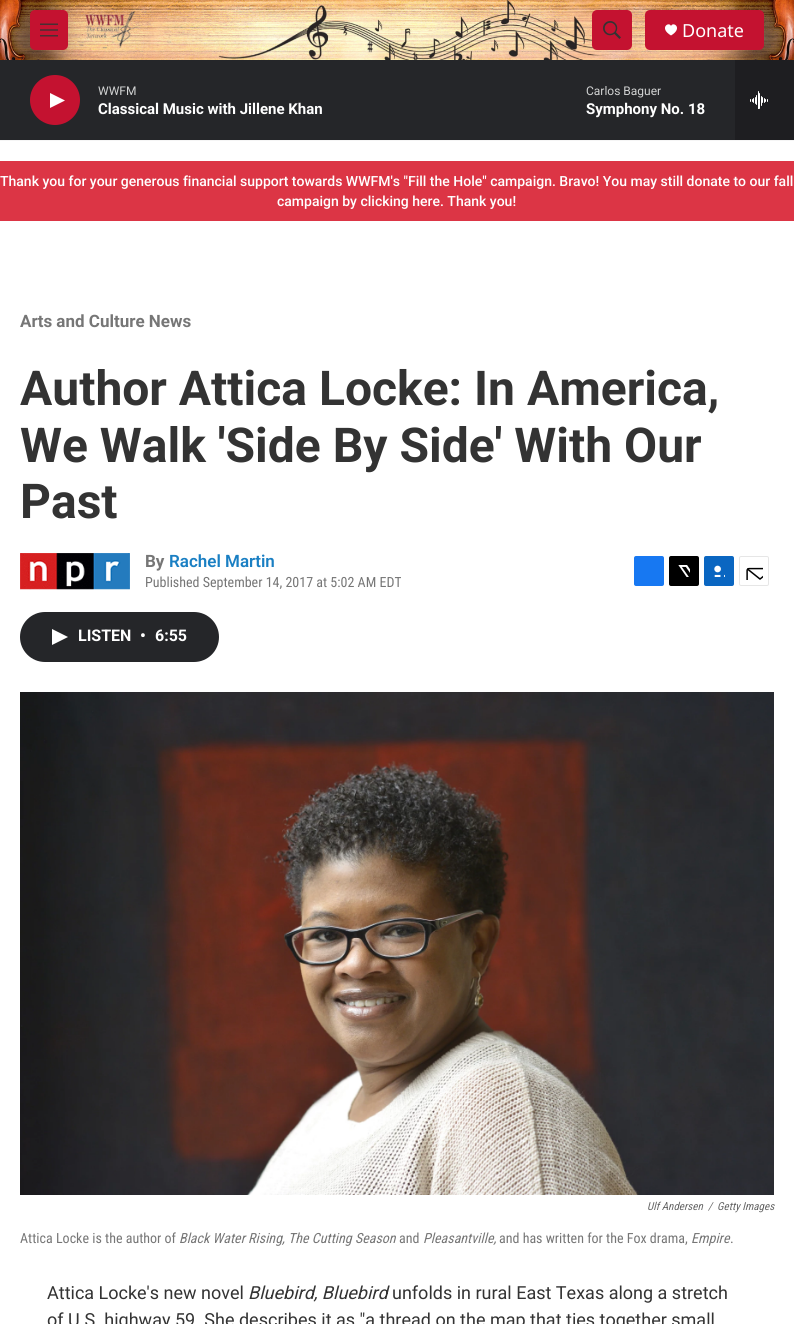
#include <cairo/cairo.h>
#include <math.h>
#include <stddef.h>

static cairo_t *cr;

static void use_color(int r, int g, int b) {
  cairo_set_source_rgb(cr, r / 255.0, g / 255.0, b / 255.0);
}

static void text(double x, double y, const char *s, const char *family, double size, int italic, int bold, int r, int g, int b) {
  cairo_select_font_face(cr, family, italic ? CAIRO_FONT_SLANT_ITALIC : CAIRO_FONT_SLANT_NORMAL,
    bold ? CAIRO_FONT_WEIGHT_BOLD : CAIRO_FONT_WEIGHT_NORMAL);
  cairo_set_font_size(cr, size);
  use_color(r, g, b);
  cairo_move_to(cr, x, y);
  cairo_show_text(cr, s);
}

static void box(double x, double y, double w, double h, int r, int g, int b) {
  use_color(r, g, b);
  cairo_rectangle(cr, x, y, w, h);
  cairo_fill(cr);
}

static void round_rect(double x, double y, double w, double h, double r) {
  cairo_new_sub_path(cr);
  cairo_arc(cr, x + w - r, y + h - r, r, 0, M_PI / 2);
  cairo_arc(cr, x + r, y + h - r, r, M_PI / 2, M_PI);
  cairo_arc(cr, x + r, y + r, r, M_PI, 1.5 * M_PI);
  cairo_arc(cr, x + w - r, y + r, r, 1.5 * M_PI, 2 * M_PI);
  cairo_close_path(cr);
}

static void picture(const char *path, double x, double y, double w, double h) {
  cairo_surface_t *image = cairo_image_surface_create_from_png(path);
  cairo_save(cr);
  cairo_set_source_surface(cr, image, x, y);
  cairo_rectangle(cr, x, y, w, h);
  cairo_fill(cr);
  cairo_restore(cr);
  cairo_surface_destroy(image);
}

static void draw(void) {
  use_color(255, 255, 255);
  cairo_paint(cr);
  box(0, 140, 794, 1, 245, 245, 245);
  picture("img_01.png", 0, 0, 794, 60);
  use_color(196, 18, 48);
  round_rect(30, 10, 38, 40, 5);
  cairo_fill(cr);
  picture("img_02.png", 40, 23, 18, 14);
  picture("img_03.png", 85, 11, 54, 37);
  round_rect(592, 10, 40, 40, 5);
  cairo_fill(cr);
  picture("img_04.png", 603, 21, 18, 18);
  round_rect(645, 10, 119, 40, 5);
  cairo_fill(cr);
  use_color(255, 255, 255);
  cairo_new_path(cr);
  cairo_move_to(cr, 671, 26);
  cairo_curve_to(cr, 669, 21, 658.5, 28, 671, 35.5);
  cairo_curve_to(cr, 683.5, 28, 673, 21, 671, 26);
  cairo_close_path(cr);
  cairo_fill(cr);
  box(0, 60, 735, 80, 37, 38, 41);
  use_color(196, 18, 48);
  cairo_arc(cr, 55, 100, 25, 0, 2 * M_PI);
  cairo_fill(cr);
  use_color(255, 255, 255);
  cairo_new_path(cr);
  cairo_move_to(cr, 50, 93);
  cairo_line_to(cr, 65, 100.5);
  cairo_line_to(cr, 50, 108);
  cairo_close_path(cr);
  cairo_fill(cr);
  box(735, 60, 59, 80, 30, 30, 33);
  picture("img_05.png", 750, 91, 18, 18);
  box(0, 161, 794, 60, 220, 53, 69);
  picture("img_06.png", 20, 553, 110, 37);
  use_color(23, 120, 242);
  round_rect(634, 556, 30, 30, 2);
  cairo_fill(cr);
  use_color(0, 0, 0);
  round_rect(669, 556, 30, 30, 2);
  cairo_fill(cr);
  picture("img_07.png", 678, 565, 12, 12);
  use_color(10, 102, 193);
  round_rect(704, 556, 30, 30, 2);
  cairo_fill(cr);
  picture("img_08.png", 714, 565, 11, 12);
  round_rect(739.5, 556.5, 29, 29, 1.5);
  use_color(230, 230, 230);
  cairo_set_line_width(cr, 1);
  cairo_stroke(cr);
  picture("img_09.png", 746, 567, 17, 13);
  use_color(37, 38, 41);
  round_rect(20, 612, 199, 50, 25);
  cairo_fill(cr);
  use_color(255, 255, 255);
  cairo_new_path(cr);
  cairo_move_to(cr, 52, 629);
  cairo_line_to(cr, 68, 637);
  cairo_line_to(cr, 52, 645);
  cairo_close_path(cr);
  cairo_fill(cr);
  picture("img_10.png", 20, 692, 754, 503);
  text(682, 37, "Donate", "Noto Sans", 18, 0, 0, 255, 255, 255);
  text(98, 95, "WWFM", "Roboto", 12, 0, 0, 211, 212, 212);
  text(98, 114, "Classical Music with Jillene Khan", "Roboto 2", 15, 0, 1, 255, 255, 255);
  text(586, 95, "Carlos Baguer", "Roboto", 12, 0, 0, 211, 212, 212);
  text(586, 114, "Symphony No. 18", "Roboto 2", 15, 0, 1, 255, 255, 255);
  text(0, 186, "Thank you for your generous financial support towards WWFM's \"Fill the Hole\" campaign. Bravo! You may still donate to our fall", "Roboto Medium", 14, 0, 0, 255, 255, 255);
  text(277, 206, "campaign by clicking here. Thank you!", "Roboto Medium", 14, 0, 0, 255, 255, 255);
  text(20, 327, "Arts and Culture News", "Roboto", 17, 0, 1, 118, 118, 118);
  text(20, 405, "Author Attica Locke: In America,", "Roboto", 48, 0, 1, 51, 51, 51);
  text(20, 462, "We Walk 'Side By Side' With Our", "Roboto", 48, 0, 1, 51, 51, 51);
  text(20, 518, "Past", "Roboto", 48, 0, 1, 51, 51, 51);
  text(145, 567, "By", "Roboto", 17, 0, 1, 118, 118, 118);
  text(169, 567, "Rachel Martin", "Roboto SemiBold", 17, 0, 0, 26, 127, 195);
  text(145, 587, "Published September 14, 2017 at 5:02 AM EDT", "Roboto Condensed", 14, 0, 0, 118, 118, 118);
  text(78, 641, "LISTEN", "Roboto 2", 16, 0, 1, 255, 255, 255);
  text(140, 641, "•", "Roboto 2", 16, 0, 1, 255, 255, 255);
  text(155, 641, "6:55", "Roboto 2", 16, 0, 1, 255, 255, 255);
  text(647, 1210, "Ulf Andersen", "Roboto Condensed", 11, 1, 0, 102, 102, 102);
  text(708, 1210, "/", "Roboto Condensed", 11, 1, 0, 102, 102, 102);
  text(717, 1210, "Getty Images", "Roboto Condensed", 11, 1, 0, 102, 102, 102);
  text(20, 1243, "Attica Locke is the author of", "Roboto Condensed", 14, 0, 0, 118, 118, 118);
  text(179, 1243, "Black Water Rising, The Cutting Season", "Roboto Condensed", 14, 1, 0, 118, 118, 118);
  text(399, 1243, "and", "Roboto Condensed", 14, 0, 0, 118, 118, 118);
  text(423, 1243, "Pleasantville,", "Roboto Condensed", 14, 1, 0, 118, 118, 118);
  text(499, 1243, "and has written for the Fox drama,", "Roboto Condensed", 14, 0, 0, 118, 118, 118);
  text(691, 1243, "Empire", "Roboto Condensed", 14, 1, 0, 118, 118, 118);
  text(730, 1243, ".", "Roboto Condensed", 14, 0, 0, 118, 118, 118);
  text(47, 1299, "Attica Locke's new novel", "Roboto", 18, 0, 0, 51, 51, 51);
  text(248, 1299, "Bluebird, Bluebird", "Roboto", 18, 1, 0, 51, 51, 51);
  text(392, 1299, "unfolds in rural East Texas along a stretch", "Roboto", 18, 0, 0, 51, 51, 51);
  text(47, 1326, "of U.S. highway 59. She describes it as \"a thread on the map that ties together small", "Roboto", 18, 0, 0, 51, 51, 51);
}

int main(void) {
  cairo_surface_t *surface = cairo_image_surface_create(CAIRO_FORMAT_RGB24, 794, 1324);
  cr = cairo_create(surface);
  cairo_font_options_t *options = cairo_font_options_create();
  cairo_font_options_set_hint_metrics(options, CAIRO_HINT_METRICS_OFF);
  cairo_font_options_set_hint_style(options, CAIRO_HINT_STYLE_NONE);
  cairo_set_font_options(cr, options);
  cairo_set_miter_limit(cr, 4);
  draw();
  cairo_surface_write_to_png(surface, "out.png");
  cairo_font_options_destroy(options);
  cairo_destroy(cr);
  cairo_surface_destroy(surface);
  return 0;
}
